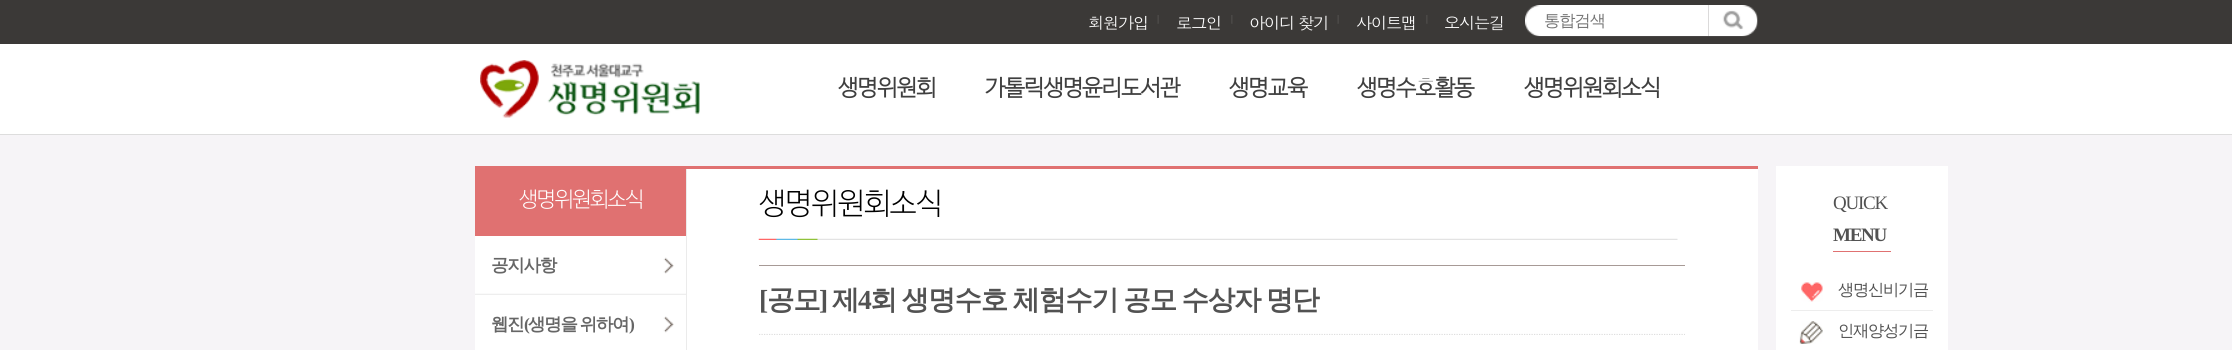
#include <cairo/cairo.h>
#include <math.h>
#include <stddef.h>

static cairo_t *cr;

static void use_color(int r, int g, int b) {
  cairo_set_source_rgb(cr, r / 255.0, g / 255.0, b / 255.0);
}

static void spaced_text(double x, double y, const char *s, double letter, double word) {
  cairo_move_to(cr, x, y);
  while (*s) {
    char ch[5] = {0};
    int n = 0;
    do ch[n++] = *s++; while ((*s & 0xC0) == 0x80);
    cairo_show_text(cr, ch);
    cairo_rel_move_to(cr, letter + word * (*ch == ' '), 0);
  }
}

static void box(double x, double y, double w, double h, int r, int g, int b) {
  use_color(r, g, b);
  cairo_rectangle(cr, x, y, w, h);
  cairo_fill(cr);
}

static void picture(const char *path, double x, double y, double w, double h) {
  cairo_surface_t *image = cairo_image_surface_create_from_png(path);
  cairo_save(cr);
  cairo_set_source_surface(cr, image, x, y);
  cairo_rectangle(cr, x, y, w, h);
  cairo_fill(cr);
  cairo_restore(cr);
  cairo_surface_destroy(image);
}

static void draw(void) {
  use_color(255, 255, 255);
  cairo_paint(cr);
  box(0, 0, 2232, 44, 59, 57, 55);
  picture("img_01.png", 1157, 15, 2, 9);
  picture("img_02.png", 1231, 15, 2, 9);
  picture("img_01.png", 1337, 15, 2, 9);
  picture("img_02.png", 1426, 15, 2, 9);
  picture("img_03.png", 1525, 5, 184, 32);
  picture("img_04.png", 1708, 5, 50, 32);
  box(0, 134, 2232, 1, 221, 221, 221);
  picture("img_05.png", 480, 60, 220, 58);
  box(0, 135, 2232, 215, 246, 244, 247);
  box(475, 169, 1283, 181, 255, 255, 255);
  box(475, 166, 1283, 3, 224, 113, 113);
  box(475, 169, 211, 67, 224, 113, 113);
  picture("img_06.png", 475, 257, 211, 38);
  picture("img_07.png", 663, 316, 11, 17);
  box(686, 169, 1, 181, 235, 235, 235);
  picture("img_08.png", 758, 238, 920, 2);
  box(759, 265, 926, 1, 167, 154, 150);
  cairo_new_path(cr);
  cairo_move_to(cr, 759, 334.5);
  cairo_line_to(cr, 1685, 334.5);
  use_color(222, 222, 222);
  cairo_set_line_width(cr, 1.2);
  cairo_set_dash(cr, (double[]){1.25, 1.25}, 2, 0);
  cairo_stroke(cr);
  box(759, 335, 926, 1, 255, 255, 255);
  box(1776, 166, 172, 184, 255, 255, 255);
  box(1833, 251, 58, 1, 224, 113, 113);
  picture("img_09.png", 1801, 282, 22, 20);
  picture("img_10.png", 1799, 321, 24, 23);
  box(1791, 310, 142, 1, 237, 237, 237);
  cairo_select_font_face(cr, "Dotum", CAIRO_FONT_SLANT_NORMAL, CAIRO_FONT_WEIGHT_NORMAL);
  cairo_set_font_size(cr, 16.25);
  use_color(255, 255, 255);
  spaced_text(1088, 29, "회원가입", -1.25, 0);
  spaced_text(1176, 29, "로그인", -1.25, 0);
  spaced_text(1249, 29, "아이디 찾기", -1.25, 0);
  spaced_text(1356, 29, "사이트맵", -1.25, 0);
  spaced_text(1444, 29, "오시는길", -1.25, 0);
  cairo_select_font_face(cr, "WenQuanYi Zen Hei Medium", CAIRO_FONT_SLANT_NORMAL, CAIRO_FONT_WEIGHT_NORMAL);
  use_color(117, 117, 117);
  spaced_text(1544, 26, "통합검색", -1, 0);
  cairo_select_font_face(cr, "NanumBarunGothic", CAIRO_FONT_SLANT_NORMAL, CAIRO_FONT_WEIGHT_BOLD);
  cairo_set_font_size(cr, 22.5);
  use_color(63, 63, 63);
  spaced_text(838, 95, "생명위원회", -0.6, 0);
  spaced_text(985, 95, "가톨릭생명윤리도서관", -0.6, 0);
  spaced_text(1229, 95, "생명교육", -0.6, 0);
  spaced_text(1357, 95, "생명수호활동", -0.6, 0);
  spaced_text(1524, 95, "생명위원회소식", -0.6, 0);
  cairo_select_font_face(cr, "NanumBarunGothic Light", CAIRO_FONT_SLANT_NORMAL, CAIRO_FONT_WEIGHT_NORMAL);
  cairo_set_font_size(cr, 21.25);
  use_color(255, 255, 255);
  spaced_text(519, 206, "생명위원회소식", -1.25, 0);
  cairo_select_font_face(cr, "WenQuanYi Zen Hei", CAIRO_FONT_SLANT_NORMAL, CAIRO_FONT_WEIGHT_BOLD);
  cairo_set_font_size(cr, 17.5);
  use_color(102, 102, 102);
  spaced_text(491, 271, "공지사항", -1.25, 0);
  spaced_text(491, 330, "웹진", -1.25, 0);
  cairo_select_font_face(cr, "Liberation Serif", CAIRO_FONT_SLANT_NORMAL, CAIRO_FONT_WEIGHT_BOLD);
  spaced_text(524, 330, "(", -1.25, 0);
  cairo_select_font_face(cr, "WenQuanYi Zen Hei", CAIRO_FONT_SLANT_NORMAL, CAIRO_FONT_WEIGHT_BOLD);
  spaced_text(528, 330, "생명을 위하여", -1.25, -1);
  cairo_select_font_face(cr, "Liberation Serif", CAIRO_FONT_SLANT_NORMAL, CAIRO_FONT_WEIGHT_BOLD);
  spaced_text(629, 330, ")", -1.25, 0);
  cairo_select_font_face(cr, "NanumBarunGothic Light", CAIRO_FONT_SLANT_NORMAL, CAIRO_FONT_WEIGHT_NORMAL);
  cairo_set_font_size(cr, 30);
  use_color(0, 0, 0);
  spaced_text(759, 213, "생명위원회소식", -0.6, 0);
  cairo_select_font_face(cr, "Liberation Serif", CAIRO_FONT_SLANT_NORMAL, CAIRO_FONT_WEIGHT_BOLD);
  cairo_set_font_size(cr, 27.5);
  use_color(82, 82, 82);
  spaced_text(759, 309, "[", -1.2, 0);
  cairo_select_font_face(cr, "WenQuanYi Zen Hei", CAIRO_FONT_SLANT_NORMAL, CAIRO_FONT_WEIGHT_BOLD);
  spaced_text(767, 309, "공모", -1.2, 0);
  cairo_select_font_face(cr, "Liberation Serif", CAIRO_FONT_SLANT_NORMAL, CAIRO_FONT_WEIGHT_BOLD);
  spaced_text(819, 309, "]", -1.2, 0);
  cairo_select_font_face(cr, "WenQuanYi Zen Hei", CAIRO_FONT_SLANT_NORMAL, CAIRO_FONT_WEIGHT_BOLD);
  spaced_text(832, 309, "제", -1.2, 0);
  cairo_select_font_face(cr, "Liberation Serif", CAIRO_FONT_SLANT_NORMAL, CAIRO_FONT_WEIGHT_BOLD);
  spaced_text(858, 309, "4", -1.2, 0);
  cairo_select_font_face(cr, "WenQuanYi Zen Hei", CAIRO_FONT_SLANT_NORMAL, CAIRO_FONT_WEIGHT_BOLD);
  spaced_text(870, 309, "회 생명수호 체험수기 공모 수상자 명단", -1.2, -1.5);
  cairo_select_font_face(cr, "Liberation Serif", CAIRO_FONT_SLANT_NORMAL, CAIRO_FONT_WEIGHT_NORMAL);
  cairo_set_font_size(cr, 19);
  spaced_text(1833, 209, "QUICK", -1.25, 0);
  cairo_select_font_face(cr, "Liberation Serif", CAIRO_FONT_SLANT_NORMAL, CAIRO_FONT_WEIGHT_BOLD);
  spaced_text(1833, 241, "MENU", -1.25, 0);
  cairo_select_font_face(cr, "WenQuanYi Zen Hei Medium", CAIRO_FONT_SLANT_NORMAL, CAIRO_FONT_WEIGHT_NORMAL);
  cairo_set_font_size(cr, 16.25);
  spaced_text(1838, 295, "생명신비기금", -1.25, 0);
  spaced_text(1838, 336, "인재양성기금", -1.25, 0);
}

int main(void) {
  cairo_surface_t *surface = cairo_image_surface_create(CAIRO_FORMAT_RGB24, 2232, 350);
  cr = cairo_create(surface);
  cairo_font_options_t *options = cairo_font_options_create();
  cairo_font_options_set_hint_metrics(options, CAIRO_HINT_METRICS_OFF);
  cairo_font_options_set_hint_style(options, CAIRO_HINT_STYLE_NONE);
  cairo_set_font_options(cr, options);
  cairo_set_miter_limit(cr, 4);
  draw();
  cairo_surface_write_to_png(surface, "out.png");
  cairo_font_options_destroy(options);
  cairo_destroy(cr);
  cairo_surface_destroy(surface);
  return 0;
}
